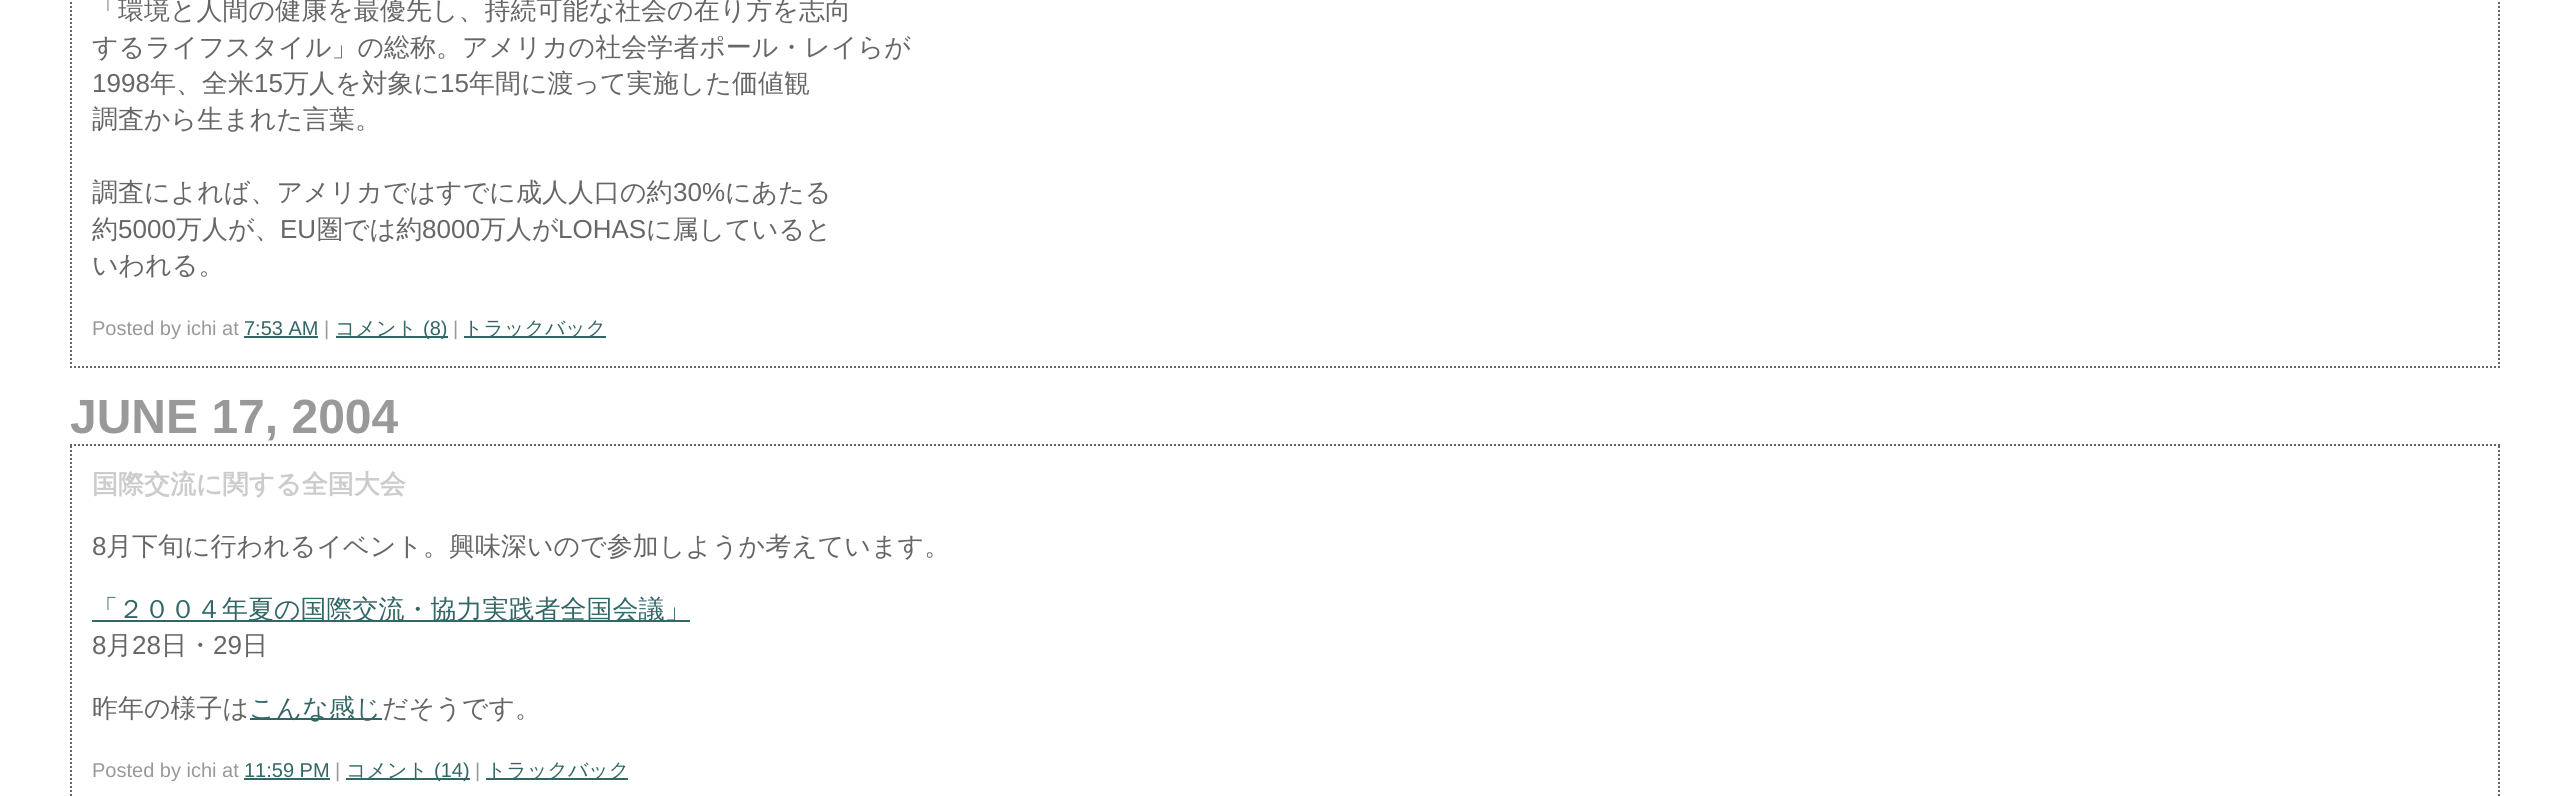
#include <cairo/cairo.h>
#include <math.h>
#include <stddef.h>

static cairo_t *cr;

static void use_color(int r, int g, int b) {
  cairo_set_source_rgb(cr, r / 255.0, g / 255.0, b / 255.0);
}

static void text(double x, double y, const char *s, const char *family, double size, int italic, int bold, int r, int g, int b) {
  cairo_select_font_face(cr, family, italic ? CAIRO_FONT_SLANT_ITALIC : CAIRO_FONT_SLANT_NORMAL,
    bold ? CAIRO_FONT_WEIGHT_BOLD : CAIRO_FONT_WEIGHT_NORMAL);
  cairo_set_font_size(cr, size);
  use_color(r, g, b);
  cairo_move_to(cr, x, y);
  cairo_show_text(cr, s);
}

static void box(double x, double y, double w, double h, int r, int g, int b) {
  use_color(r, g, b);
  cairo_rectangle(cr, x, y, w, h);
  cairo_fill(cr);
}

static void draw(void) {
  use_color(255, 255, 255);
  cairo_paint(cr);
  cairo_new_path(cr);
  cairo_move_to(cr, 2499, -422);
  cairo_line_to(cr, 2499, 368);
  use_color(102, 102, 102);
  cairo_set_dash(cr, (double[]){2, 2}, 2, 0);
  cairo_stroke(cr);
  cairo_new_path(cr);
  cairo_move_to(cr, 70, 367);
  cairo_line_to(cr, 2500, 367);
  cairo_stroke(cr);
  cairo_new_path(cr);
  cairo_move_to(cr, 71, -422);
  cairo_line_to(cr, 71, 368);
  cairo_stroke(cr);
  box(244, 336, 74, 2, 51, 102, 102);
  box(336, 336, 112, 2, 51, 102, 102);
  box(464, 336, 142, 2, 51, 102, 102);
  cairo_new_path(cr);
  cairo_move_to(cr, 70, 445);
  cairo_line_to(cr, 2500, 445);
  use_color(102, 102, 102);
  cairo_stroke(cr);
  cairo_new_path(cr);
  cairo_move_to(cr, 2499, 446);
  cairo_line_to(cr, 2499, 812);
  cairo_stroke(cr);
  cairo_new_path(cr);
  cairo_move_to(cr, 71, 446);
  cairo_line_to(cr, 71, 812);
  cairo_stroke(cr);
  box(92, 620, 598, 2, 51, 102, 102);
  box(250, 718, 132, 2, 51, 102, 102);
  box(244, 778, 86, 2, 51, 102, 102);
  box(346, 778, 124, 2, 51, 102, 102);
  box(486, 778, 142, 2, 51, 102, 102);
  text(92, 19, "「環境と人間の健康を最優先し、持続可能な社会の在り方を志向", "WenQuanYi Zen Hei Medium", 26, 0, 0, 102, 102, 102);
  text(92, 56, "するライフスタイル」の総称。アメリカの社会学者ポール・レイらが", "WenQuanYi Zen Hei Medium", 26, 0, 0, 102, 102, 102);
  text(92, 92, "1998", "Liberation Sans", 26, 0, 0, 102, 102, 102);
  text(150, 92, "年、全米", "WenQuanYi Zen Hei Medium", 26, 0, 0, 102, 102, 102);
  text(254, 92, "15", "Liberation Sans", 26, 0, 0, 102, 102, 102);
  text(283, 92, "万人を対象に", "WenQuanYi Zen Hei Medium", 26, 0, 0, 102, 102, 102);
  text(440, 92, "15", "Liberation Sans", 26, 0, 0, 102, 102, 102);
  text(469, 92, "年間に渡って実施した価値観", "WenQuanYi Zen Hei Medium", 26, 0, 0, 102, 102, 102);
  text(92, 128, "調査から生まれた言葉。", "WenQuanYi Zen Hei Medium", 26, 0, 0, 102, 102, 102);
  text(92, 201, "調査によれば、アメリカではすでに成人人口の約", "WenQuanYi Zen Hei Medium", 26, 0, 0, 102, 102, 102);
  text(673, 201, "30%", "Liberation Sans", 26, 0, 0, 102, 102, 102);
  text(725, 201, "にあたる", "WenQuanYi Zen Hei Medium", 26, 0, 0, 102, 102, 102);
  text(92, 238, "約", "WenQuanYi Zen Hei Medium", 26, 0, 0, 102, 102, 102);
  text(118, 238, "5000", "Liberation Sans", 26, 0, 0, 102, 102, 102);
  text(176, 238, "万人が、", "WenQuanYi Zen Hei Medium", 26, 0, 0, 102, 102, 102);
  text(280, 238, "EU", "Liberation Sans", 26, 0, 0, 102, 102, 102);
  text(317, 238, "圏では約", "WenQuanYi Zen Hei Medium", 26, 0, 0, 102, 102, 102);
  text(422, 238, "8000", "Liberation Sans", 26, 0, 0, 102, 102, 102);
  text(480, 238, "万人が", "WenQuanYi Zen Hei Medium", 26, 0, 0, 102, 102, 102);
  text(558, 238, "LOHAS", "Liberation Sans", 26, 0, 0, 102, 102, 102);
  text(646, 238, "に属していると", "WenQuanYi Zen Hei Medium", 26, 0, 0, 102, 102, 102);
  text(92, 274, "いわれる。", "WenQuanYi Zen Hei Medium", 26, 0, 0, 102, 102, 102);
  text(92, 335, "Posted by ichi at", "Liberation Sans", 20, 0, 0, 153, 153, 153);
  text(244, 335, "7:53 AM", "Liberation Sans", 20, 0, 0, 51, 102, 102);
  text(324, 335, "|", "Liberation Sans", 20, 0, 0, 153, 153, 153);
  text(335, 335, "コメント", "WenQuanYi Zen Hei Medium", 20, 0, 0, 51, 102, 102);
  text(423, 335, "(8)", "Liberation Sans", 20, 0, 0, 51, 102, 102);
  text(453, 335, "|", "Liberation Sans", 20, 0, 0, 153, 153, 153);
  text(463, 335, "トラックバック", "WenQuanYi Zen Hei Medium", 20, 0, 0, 51, 102, 102);
  text(70, 433, "JUNE 17, 2004", "Liberation Sans", 48, 0, 1, 153, 153, 153);
  text(92, 493, "国際交流に関する全国大会", "WenQuanYi Zen Hei", 26, 0, 1, 204, 204, 204);
  text(92, 555, "8", "Liberation Sans", 26, 0, 0, 102, 102, 102);
  text(106, 555, "月下旬に行われるイベント。興味深いので参加しようか考えています。", "WenQuanYi Zen Hei Medium", 26, 0, 0, 102, 102, 102);
  text(92, 618, "「２００４年夏の国際交流・協力実践者全国会議」", "WenQuanYi Zen Hei Medium", 26, 0, 0, 51, 102, 102);
  text(92, 654, "8", "Liberation Sans", 26, 0, 0, 102, 102, 102);
  text(106, 654, "月", "WenQuanYi Zen Hei Medium", 26, 0, 0, 102, 102, 102);
  text(132, 654, "28", "Liberation Sans", 26, 0, 0, 102, 102, 102);
  text(161, 654, "日・", "WenQuanYi Zen Hei Medium", 26, 0, 0, 102, 102, 102);
  text(213, 654, "29", "Liberation Sans", 26, 0, 0, 102, 102, 102);
  text(242, 654, "日", "WenQuanYi Zen Hei Medium", 26, 0, 0, 102, 102, 102);
  text(92, 717, "昨年の様子は", "WenQuanYi Zen Hei Medium", 26, 0, 0, 102, 102, 102);
  text(249, 717, "こんな感じ", "WenQuanYi Zen Hei Medium", 26, 0, 0, 51, 102, 102);
  text(382, 717, "だそうです。", "WenQuanYi Zen Hei Medium", 26, 0, 0, 102, 102, 102);
  text(92, 777, "Posted by ichi at", "Liberation Sans", 20, 0, 0, 153, 153, 153);
  text(244, 777, "11:59 PM", "Liberation Sans", 20, 0, 0, 51, 102, 102);
  text(335, 777, "|", "Liberation Sans", 20, 0, 0, 153, 153, 153);
  text(346, 777, "コメント", "WenQuanYi Zen Hei Medium", 20, 0, 0, 51, 102, 102);
  text(434, 777, "(14)", "Liberation Sans", 20, 0, 0, 51, 102, 102);
  text(475, 777, "|", "Liberation Sans", 20, 0, 0, 153, 153, 153);
  text(486, 777, "トラックバック", "WenQuanYi Zen Hei Medium", 20, 0, 0, 51, 102, 102);
}

int main(void) {
  cairo_surface_t *surface = cairo_image_surface_create(CAIRO_FORMAT_RGB24, 2570, 796);
  cr = cairo_create(surface);
  cairo_font_options_t *options = cairo_font_options_create();
  cairo_font_options_set_hint_metrics(options, CAIRO_HINT_METRICS_OFF);
  cairo_font_options_set_hint_style(options, CAIRO_HINT_STYLE_NONE);
  cairo_set_font_options(cr, options);
  cairo_set_miter_limit(cr, 4);
  draw();
  cairo_surface_write_to_png(surface, "out.png");
  cairo_font_options_destroy(options);
  cairo_destroy(cr);
  cairo_surface_destroy(surface);
  return 0;
}
